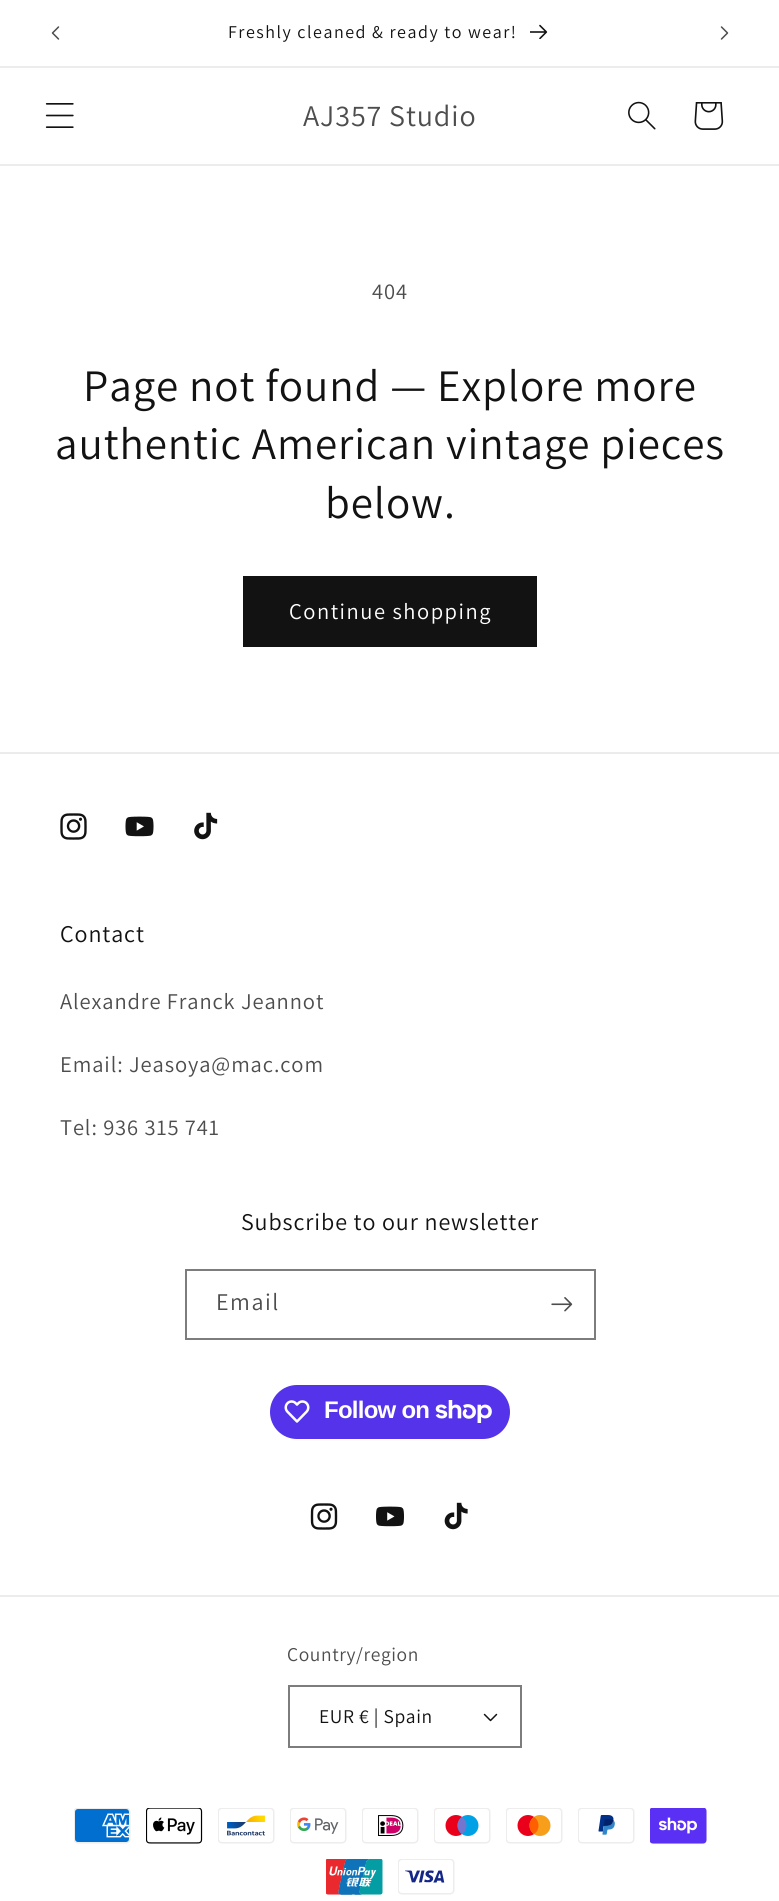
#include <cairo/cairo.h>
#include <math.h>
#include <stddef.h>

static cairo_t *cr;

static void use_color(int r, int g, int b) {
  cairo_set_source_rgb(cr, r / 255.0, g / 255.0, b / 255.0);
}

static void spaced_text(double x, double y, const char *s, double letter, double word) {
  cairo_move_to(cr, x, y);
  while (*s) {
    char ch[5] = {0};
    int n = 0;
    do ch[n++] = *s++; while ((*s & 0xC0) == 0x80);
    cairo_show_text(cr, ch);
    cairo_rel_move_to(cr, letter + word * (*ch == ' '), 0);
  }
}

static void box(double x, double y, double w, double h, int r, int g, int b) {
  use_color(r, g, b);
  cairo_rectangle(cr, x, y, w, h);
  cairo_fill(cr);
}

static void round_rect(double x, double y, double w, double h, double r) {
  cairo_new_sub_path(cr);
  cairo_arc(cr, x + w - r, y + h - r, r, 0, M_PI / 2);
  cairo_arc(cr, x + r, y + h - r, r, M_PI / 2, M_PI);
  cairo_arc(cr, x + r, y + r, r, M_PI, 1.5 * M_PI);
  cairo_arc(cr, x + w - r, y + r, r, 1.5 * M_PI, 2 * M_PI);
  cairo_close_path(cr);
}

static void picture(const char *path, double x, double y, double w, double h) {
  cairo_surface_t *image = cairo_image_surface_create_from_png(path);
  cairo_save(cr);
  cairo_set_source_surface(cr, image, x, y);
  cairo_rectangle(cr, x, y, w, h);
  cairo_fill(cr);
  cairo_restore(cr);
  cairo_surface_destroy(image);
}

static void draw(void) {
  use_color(255, 255, 255);
  cairo_paint(cr);
  box(0, 66, 779, 2, 236, 236, 236);
  picture("img_01.png", 51, 26, 9, 14);
  picture("img_02.png", 530, 24, 18, 15);
  picture("img_03.png", 720, 26, 9, 14);
  box(0, 164, 779, 2, 236, 236, 236);
  picture("img_04.png", 45, 103, 29, 25);
  picture("img_05.png", 628, 101, 28, 29);
  picture("img_06.png", 694, 102, 30, 28);
  box(243, 576, 294, 71, 18, 18, 18);
  box(0, 752, 779, 2, 236, 236, 236);
  picture("img_07.png", 60, 813, 27, 27);
  picture("img_08.png", 125, 816, 29, 21);
  picture("img_09.png", 194, 812, 24, 28);
  cairo_rectangle(cr, 186, 1270, 409, 69);
  use_color(125, 125, 125);
  cairo_stroke(cr);
  picture("img_10.png", 551, 1297, 22, 15);
  use_color(84, 51, 235);
  round_rect(270, 1385, 240, 54, 27);
  cairo_fill(cr);
  picture("img_11.png", 284, 1400, 26, 23);
  picture("img_12.png", 435, 1400, 57, 23);
  picture("img_13.png", 310, 1503, 28, 27);
  picture("img_14.png", 376, 1506, 28, 21);
  picture("img_15.png", 444, 1502, 24, 28);
  box(0, 1595, 779, 2, 236, 236, 236);
  picture("img_16.png", 483, 1713, 15, 9);
  cairo_rectangle(cr, 289, 1686, 232, 61);
  use_color(125, 125, 125);
  cairo_stroke(cr);
  picture("img_17.png", 74, 1808, 57, 36);
  picture("img_18.png", 146, 1808, 57, 36);
  picture("img_19.png", 218, 1808, 57, 36);
  picture("img_20.png", 290, 1808, 57, 36);
  picture("img_21.png", 362, 1808, 57, 36);
  picture("img_22.png", 434, 1808, 57, 36);
  picture("img_23.png", 506, 1808, 57, 36);
  picture("img_24.png", 578, 1808, 57, 36);
  picture("img_25.png", 650, 1808, 57, 36);
  picture("img_26.png", 326, 1859, 57, 36);
  picture("img_27.png", 398, 1859, 57, 36);
  cairo_select_font_face(cr, "Assistant", CAIRO_FONT_SLANT_NORMAL, CAIRO_FONT_WEIGHT_NORMAL);
  cairo_set_font_size(cr, 18);
  use_color(18, 18, 18);
  spaced_text(228, 38, "Freshly cleaned & ready to wear!", 1.5, 0);
  cairo_set_font_size(cr, 30);
  use_color(77, 77, 77);
  spaced_text(303, 126, "AJ357 Studio", 0.9, 0);
  cairo_set_font_size(cr, 22.5);
  spaced_text(372, 299, "404", 0.9, 0);
  cairo_set_font_size(cr, 45);
  use_color(18, 18, 18);
  spaced_text(83, 401, "Page not found — Explore more", 0.9, 0);
  spaced_text(55, 459, "authentic American vintage pieces", 0.9, 0);
  spaced_text(325, 518, "below.", 0.9, 0);
  cairo_set_font_size(cr, 22.5);
  use_color(255, 255, 255);
  spaced_text(289, 619, "Continue shopping", 1.5, 0);
  cairo_set_font_size(cr, 24);
  use_color(18, 18, 18);
  spaced_text(60, 942, "Contact", 0.9, 0);
  cairo_set_font_size(cr, 22.5);
  use_color(77, 77, 77);
  spaced_text(60, 1009, "Alexandre Franck Jeannot", 0.9, 0);
  spaced_text(60, 1072, "Email: Jeasoya@mac.com", 0.9, 0);
  spaced_text(60, 1135, "Tel: 936 315 741", 0.9, 0);
  cairo_set_font_size(cr, 24);
  use_color(18, 18, 18);
  spaced_text(241, 1230, "Subscribe to our newsletter", 0.9, 0);
  use_color(77, 77, 77);
  spaced_text(216, 1310, "Email", 1.5, 0);
  cairo_select_font_face(cr, "Liberation Sans", CAIRO_FONT_SLANT_NORMAL, CAIRO_FONT_WEIGHT_BOLD);
  use_color(255, 255, 255);
  spaced_text(324, 1418, "Follow on", -0.75, 0);
  cairo_select_font_face(cr, "Assistant", CAIRO_FONT_SLANT_NORMAL, CAIRO_FONT_WEIGHT_NORMAL);
  cairo_set_font_size(cr, 19.5);
  use_color(77, 77, 77);
  spaced_text(287, 1661, "Country/region", 0.6, 0);
  use_color(18, 18, 18);
  spaced_text(319, 1723, "EUR € | Spain", 0.6, 0);
}

int main(void) {
  cairo_surface_t *surface = cairo_image_surface_create(CAIRO_FORMAT_RGB24, 779, 1901);
  cr = cairo_create(surface);
  cairo_font_options_t *options = cairo_font_options_create();
  cairo_font_options_set_hint_metrics(options, CAIRO_HINT_METRICS_OFF);
  cairo_font_options_set_hint_style(options, CAIRO_HINT_STYLE_NONE);
  cairo_set_font_options(cr, options);
  cairo_set_miter_limit(cr, 4);
  draw();
  cairo_surface_write_to_png(surface, "out.png");
  cairo_font_options_destroy(options);
  cairo_destroy(cr);
  cairo_surface_destroy(surface);
  return 0;
}
